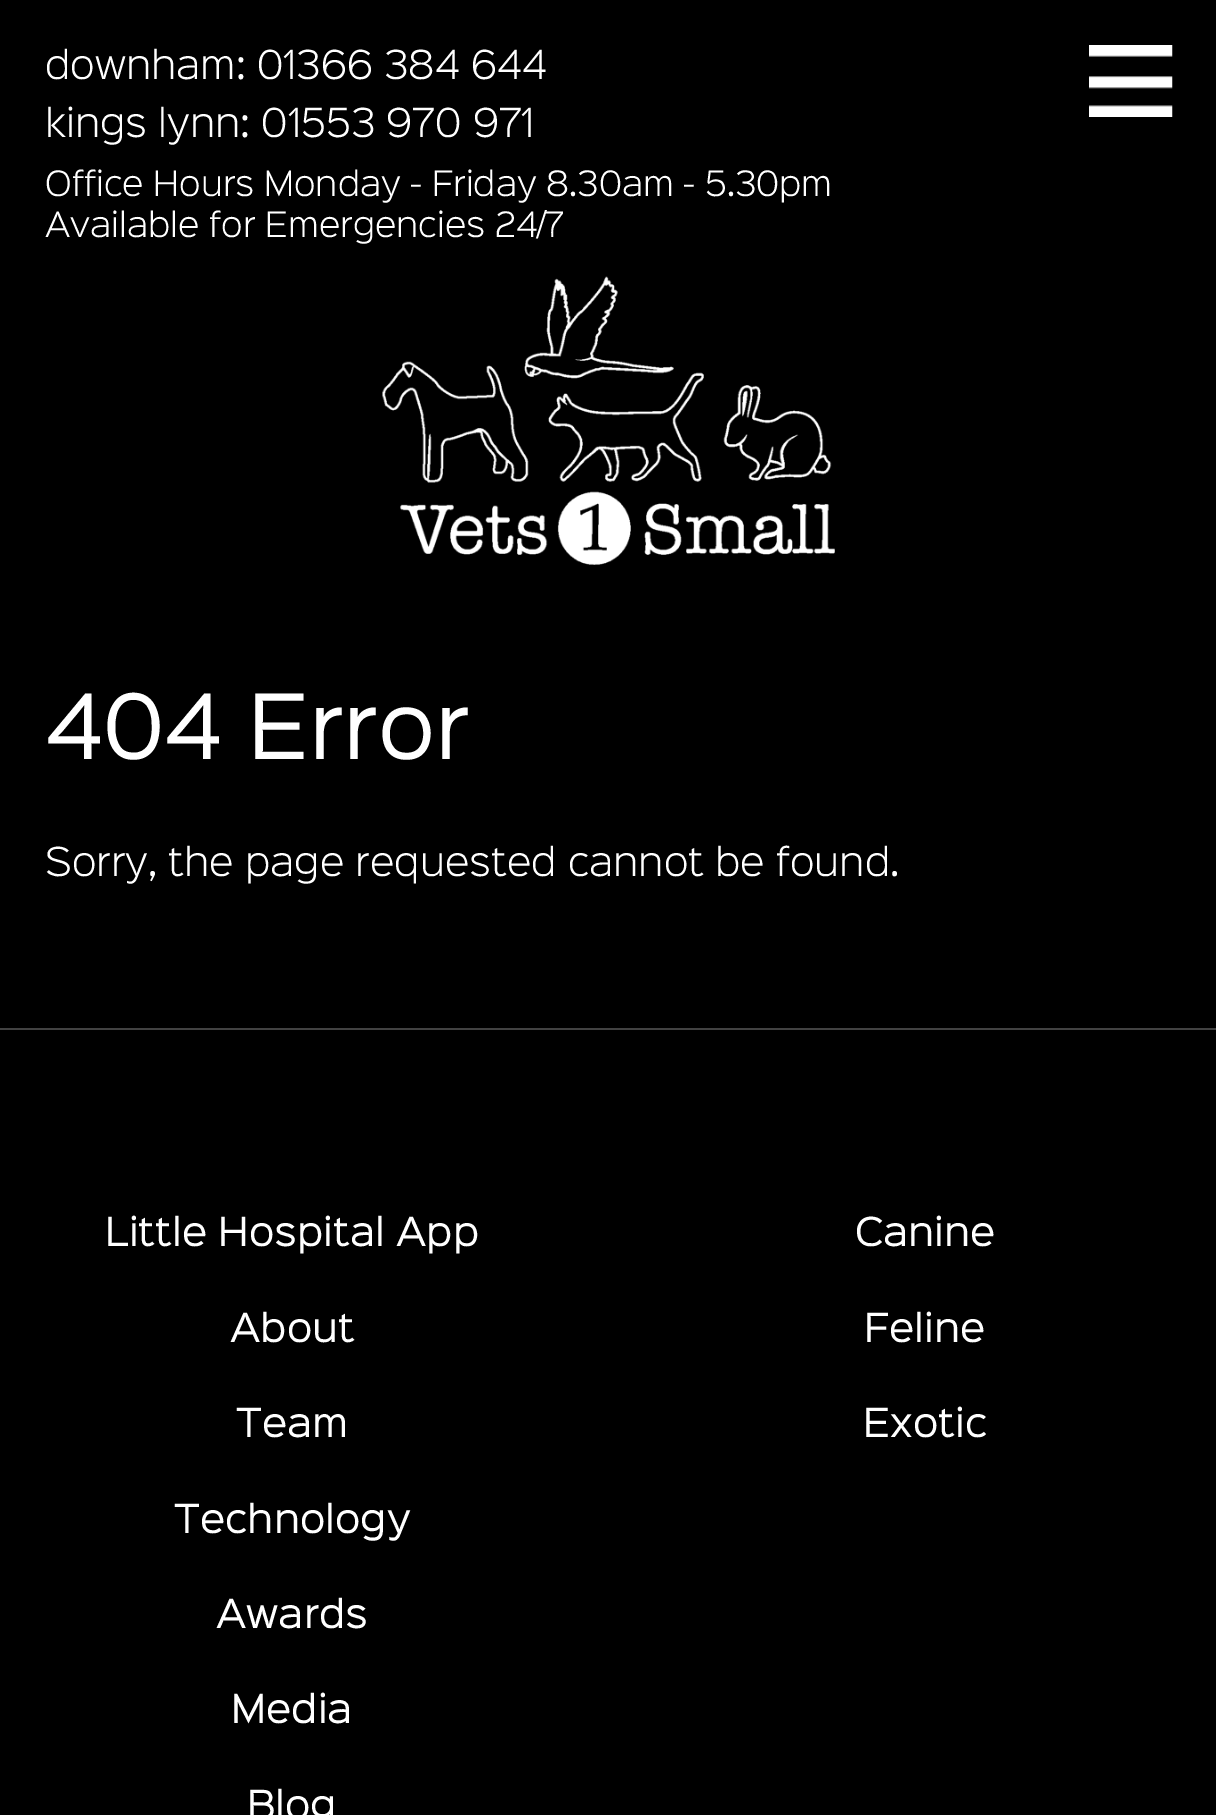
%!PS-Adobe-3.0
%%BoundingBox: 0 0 1216 1815
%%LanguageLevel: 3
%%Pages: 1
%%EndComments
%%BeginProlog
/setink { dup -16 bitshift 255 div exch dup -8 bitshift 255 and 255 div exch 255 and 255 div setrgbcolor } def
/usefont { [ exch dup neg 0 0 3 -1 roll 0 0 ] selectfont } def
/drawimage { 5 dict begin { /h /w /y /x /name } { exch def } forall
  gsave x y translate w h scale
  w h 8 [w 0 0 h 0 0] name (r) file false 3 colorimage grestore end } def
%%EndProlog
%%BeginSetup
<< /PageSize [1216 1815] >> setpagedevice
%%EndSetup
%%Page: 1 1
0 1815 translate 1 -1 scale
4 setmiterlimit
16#000000 setink
0 0 1216 1815 rectfill
/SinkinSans-Light 36 usefont
16#FFFFFF setink
45 79 moveto (downham: 01366 384 644) show
45 137 moveto (kings lynn: 01553 970 971) show
/SinkinSans-Light 31.5 usefont
45 196 moveto (Office Hours Monday - Friday 8.30am - 5.30pm) show
45 237 moveto (Available for Emergencies 24/7) show
(img1.raw) 1089 45 84 72 drawimage
(img2.raw) 382 276 453 289 drawimage
/SinkinSans-Regular 81 usefont
45 759 moveto (404 Error) show
/SinkinSans-Light 36 usefont
45 876 moveto (Sorry, the page requested cannot be found.) show
16#424242 setink
0 1028 1216 2 rectfill
/SinkinSans-Regular 36 usefont
16#FFFFFF setink
[
    [(Little Hospital App) 105 1246]
    [(About) 230 1342]
    [(Team) 236 1437]
    [(Technology) 174 1533]
    [(Awards) 216 1628]
    [(Media) 231 1723]
    [(Blog) 247 1819]
    [(Canine) 855 1246]
    [(Feline) 864 1342]
    [(Exotic) 863 1437]
] { aload pop moveto show } forall
showpage
%%EOF
